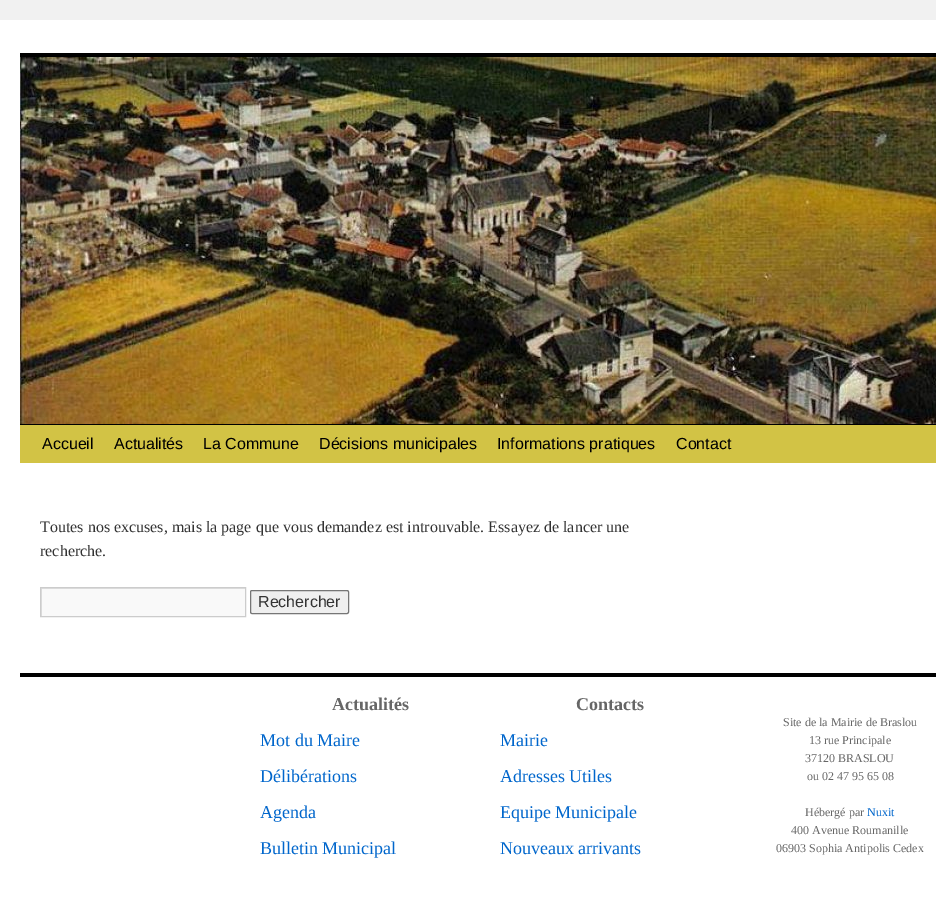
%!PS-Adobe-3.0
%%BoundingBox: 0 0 936 915
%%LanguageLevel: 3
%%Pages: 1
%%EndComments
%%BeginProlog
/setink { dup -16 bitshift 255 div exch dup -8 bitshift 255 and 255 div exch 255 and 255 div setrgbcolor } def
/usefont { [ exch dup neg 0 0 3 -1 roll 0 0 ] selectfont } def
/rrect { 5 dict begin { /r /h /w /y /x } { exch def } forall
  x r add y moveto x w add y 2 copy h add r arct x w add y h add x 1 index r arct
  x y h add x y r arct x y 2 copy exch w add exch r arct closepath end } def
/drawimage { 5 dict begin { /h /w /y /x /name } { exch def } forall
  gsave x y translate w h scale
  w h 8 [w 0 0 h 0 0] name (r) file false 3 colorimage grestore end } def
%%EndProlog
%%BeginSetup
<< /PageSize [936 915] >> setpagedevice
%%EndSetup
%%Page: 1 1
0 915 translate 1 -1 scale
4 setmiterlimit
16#F1F1F1 setink
0 0 936 915 rectfill
[
    [0 20 936 895 16#FFFFFF]
    [20 53 916 4 16#000000]
    [20 424 916 1 16#000000]
] { aload pop setink rectfill } forall
(img1.raw) 20 57 916 367 drawimage
16#D2C345 setink
20 425 916 38 rectfill
/LiberationSans-Regular 16 usefont
16#000000 setink
[
    [(Accueil) 42 449]
    [(Actualités) 114 449]
    [(La Commune) 203 449]
    [(Décisions municipales) 319 449]
    [(Informations pratiques) 497 449]
    [(Contact) 676 449]
] { aload pop moveto show } forall
/LiberationSerif-Regular 16 usefont
16#333333 setink
40 532 moveto (Toutes nos excuses, mais la page que vous demandez est introuvable. Essayez de lancer une) show
40 556 moveto (recherche.) show
16#F9F9F9 setink
42 589 203 27 rectfill
gsave
41 588 204 28 rectclip
16#E0E0E0 setink
-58 489 moveto 344 489 lineto 344 715 lineto -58 715 lineto closepath 42 589 moveto 246 589 lineto 246 617 lineto 42 617 lineto closepath eofill
grestore
16#CCCCCC setink
40.5 587.5 205 29 rectstroke
16#EFEFEF setink
250.5 590.5 98 23 1.5 rrect gsave fill grestore
16#767676 setink
stroke
/LiberationSans-Regular 16 usefont
16#333333 setink
258 607 moveto (Rechercher) show
16#000000 setink
20 673 916 4 rectfill
/LiberationSerif-Bold 18 usefont
16#666666 setink
332 710 moveto (Actualités) show
/LiberationSerif-Regular 18 usefont
16#0066CC setink
[
    [(Mot du Maire) 260 746]
    [(Délibérations) 260 782]
    [(Agenda) 260 818]
    [(Bulletin Municipal) 260 854]
] { aload pop moveto show } forall
/LiberationSerif-Bold 18 usefont
16#666666 setink
576 710 moveto (Contacts) show
/LiberationSerif-Regular 18 usefont
16#0066CC setink
[
    [(Mairie) 500 746]
    [(Adresses Utiles) 500 782]
    [(Equipe Municipale) 500 818]
    [(Nouveaux arrivants) 500 854]
] { aload pop moveto show } forall
/LiberationSerif-Regular 12 usefont
16#666666 setink
[
    [(Site de la Mairie de Braslou) 783 726]
    [(13 rue Principale) 809 744]
    [(37120 BRASLOU) 805 762]
    [(ou 02 47 95 65 08) 807 780]
    [(Hébergé par) 805 816]
] { aload pop moveto show } forall
16#0066CC setink
867 816 moveto (Nuxit) show
16#666666 setink
791 834 moveto (400 Avenue Roumanille) show
776 852 moveto (06903 Sophia Antipolis Cedex) show
showpage
%%EOF
